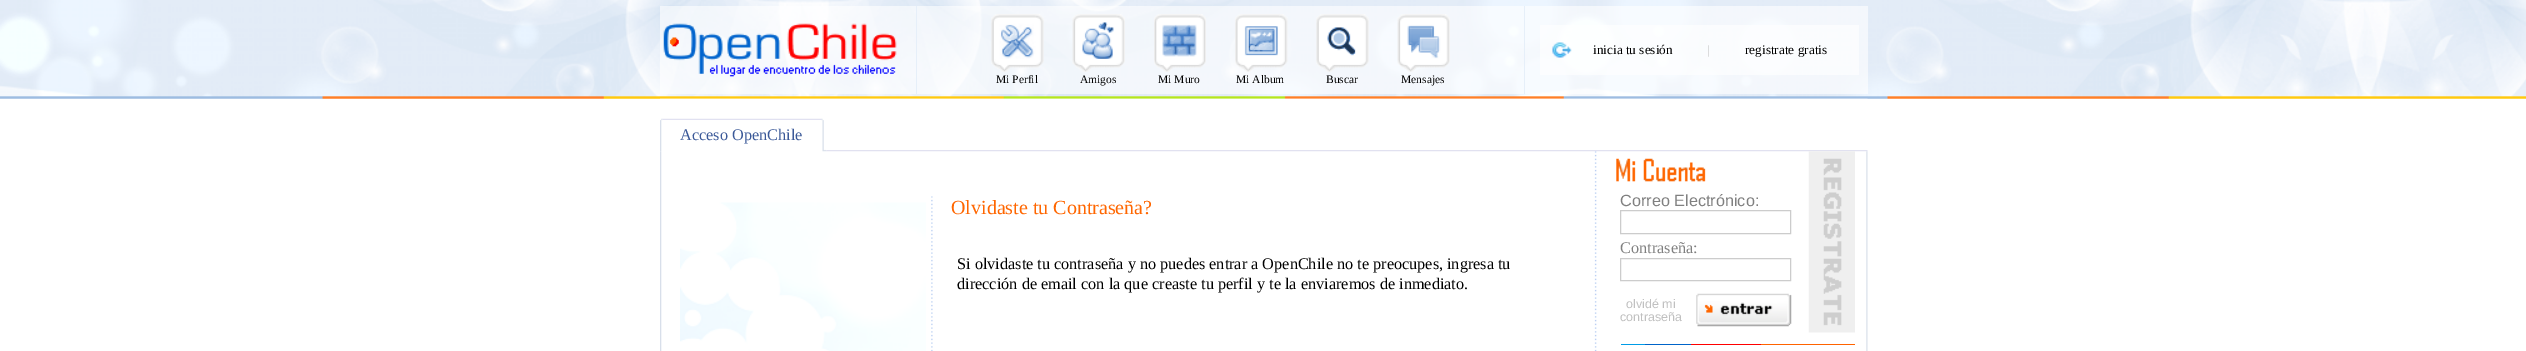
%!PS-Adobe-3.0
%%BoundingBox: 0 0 2526 351
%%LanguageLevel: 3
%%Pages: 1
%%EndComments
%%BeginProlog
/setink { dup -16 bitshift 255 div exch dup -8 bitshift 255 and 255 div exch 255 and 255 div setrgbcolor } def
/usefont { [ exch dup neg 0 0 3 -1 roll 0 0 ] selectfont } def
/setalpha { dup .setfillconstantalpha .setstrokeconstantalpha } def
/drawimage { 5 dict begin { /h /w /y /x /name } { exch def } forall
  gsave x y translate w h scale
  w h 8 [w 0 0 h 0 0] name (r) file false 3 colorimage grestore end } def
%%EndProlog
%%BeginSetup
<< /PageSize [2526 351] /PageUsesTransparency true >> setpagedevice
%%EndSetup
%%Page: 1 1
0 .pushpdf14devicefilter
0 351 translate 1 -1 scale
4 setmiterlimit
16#FFFFFF setink
0 0 2526 351 rectfill
(img1.raw) 0 0 2526 99 drawimage
0.6 setalpha
660 6 1208 88 rectfill
1 setalpha
(img2.raw) 663 23 234 54 drawimage
[
    [916 6 1 88 16#E6EFF9]
    [1524 6 1 88 16#E6EFF9]
] { aload pop setink rectfill } forall
0.6 setalpha
[
    [1540 25 319 50 16#FFFFFF]
] { aload pop setink rectfill } forall
1 setalpha
(img3.raw) 1552 42 20 16 drawimage
/LiberationSerif-Regular 13.25 usefont
16#000000 setink
1593 54 moveto (inicia tu sesión) show
/LiberationSerif-Regular 12.5 usefont
16#C0C0C0 setink
1707 54 moveto (|) show
/LiberationSerif-Regular 13.25 usefont
16#000000 setink
1745 54 moveto (registrate gratis) show
(img4.raw) 991 14 53 58 drawimage
/LiberationSerif-Regular 11.5 usefont
996 83 moveto (Mi Perfil) show
(img5.raw) 1072 14 53 58 drawimage
1080 83 moveto (Amigos) show
(img6.raw) 1154 14 52 58 drawimage
1158 83 moveto (Mi Muro) show
(img7.raw) 1235 14 53 58 drawimage
1236 83 moveto (Mi Album) show
(img8.raw) 1316 14 53 58 drawimage
1326 83 moveto (Buscar) show
(img9.raw) 1397 14 53 58 drawimage
1401 83 moveto (Mensajes) show
(img10.raw) 660 98 1208 1 drawimage
(img11.raw) 660 118 3 34 drawimage
(img12.raw) 662 118 160 2 drawimage
/LiberationSerif-Regular 16.25 usefont
16#3B5998 setink
680 140 moveto (Acceso OpenChile) show
(img13.raw) 821 118 6 34 drawimage
(img14.raw) 826 150 1042 2 drawimage
(img15.raw) 660 151 1208 200 drawimage
(img16.raw) 680 202 246 149 drawimage
(img17.raw) 931 196 2 155 drawimage
/LiberationSerif-Regular 20 usefont
16#FF6600 setink
951 214 moveto (Olvidaste tu Contraseña?) show
/LiberationSerif-Regular 16.25 usefont
16#000000 setink
957 269 moveto (Si olvidaste tu contraseña y no puedes entrar a OpenChile no te preocupes, ingresa tu) show
957 289 moveto (dirección de email con la que creaste tu perfil y te la enviaremos de inmediato.) show
(img18.raw) 1594 151 3 200 drawimage
(img19.raw) 1616 158 90 24 drawimage
/LiberationSans-Regular 16.25 usefont
16#808080 setink
1620 206 moveto (Correo Electrónico:) show
16#CCCCCC setink
1620.5 210.5 170 23 rectstroke
/LiberationSerif-Regular 16.25 usefont
16#808080 setink
1620 253 moveto (Contraseña:) show
16#CCCCCC setink
1620.5 258.5 170 22 rectstroke
/LiberationSans-Regular 12.5 usefont
16#C0C0C0 setink
1626 308 moveto (olvidé mi) show
1620 321 moveto (contraseña) show
(img20.raw) 1696 293 96 34 drawimage
(img21.raw) 1808 151 47 182 drawimage
[
    [1621 344 24 1 16#009CE7]
    [1645 344 46 1 16#0064C9]
    [1691 344 70 1 16#FF0000]
    [1761 344 94 1 16#FF6300]
] { aload pop setink rectfill } forall
.poppdf14devicefilter showpage
%%EOF
